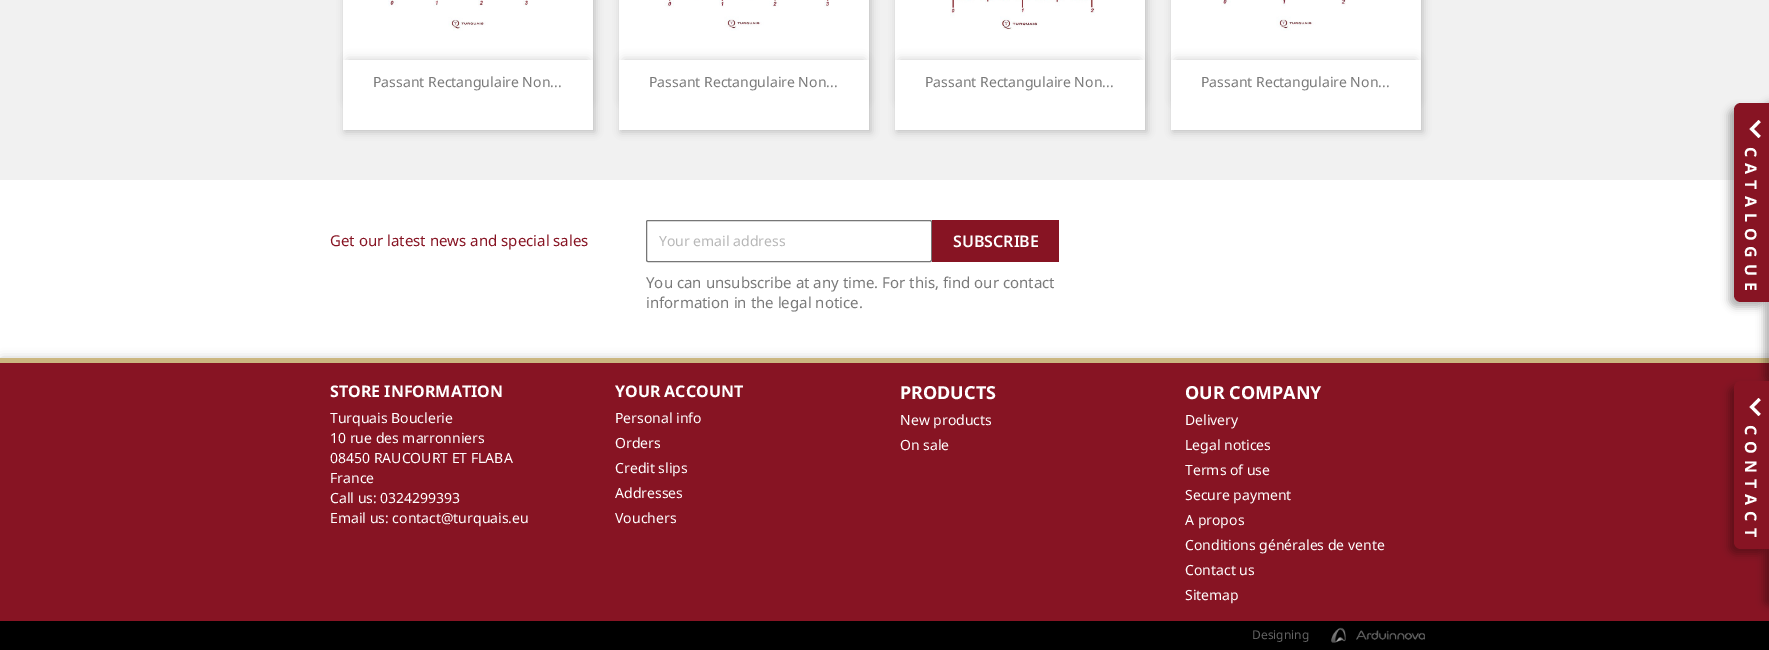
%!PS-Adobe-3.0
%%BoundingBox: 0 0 1769 650
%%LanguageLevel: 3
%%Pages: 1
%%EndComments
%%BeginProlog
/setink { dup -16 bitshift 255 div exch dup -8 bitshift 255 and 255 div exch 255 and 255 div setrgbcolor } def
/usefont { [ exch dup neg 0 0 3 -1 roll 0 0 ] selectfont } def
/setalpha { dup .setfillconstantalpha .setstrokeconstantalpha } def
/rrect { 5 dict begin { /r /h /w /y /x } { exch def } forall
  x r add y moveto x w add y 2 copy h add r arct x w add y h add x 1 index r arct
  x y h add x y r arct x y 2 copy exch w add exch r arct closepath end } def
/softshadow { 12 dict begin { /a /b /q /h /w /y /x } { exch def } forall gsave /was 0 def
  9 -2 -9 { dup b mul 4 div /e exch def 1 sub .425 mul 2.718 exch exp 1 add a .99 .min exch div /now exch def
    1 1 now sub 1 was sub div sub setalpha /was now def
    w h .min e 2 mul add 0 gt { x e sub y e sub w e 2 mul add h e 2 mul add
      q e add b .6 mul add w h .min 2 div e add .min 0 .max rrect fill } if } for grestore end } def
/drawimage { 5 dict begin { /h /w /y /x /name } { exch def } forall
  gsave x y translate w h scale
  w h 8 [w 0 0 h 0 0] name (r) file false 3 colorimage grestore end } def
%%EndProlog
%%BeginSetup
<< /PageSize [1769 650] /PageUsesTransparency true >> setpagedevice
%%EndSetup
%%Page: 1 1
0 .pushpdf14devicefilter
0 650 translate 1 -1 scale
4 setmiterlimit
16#FFFFFF setink
0 0 1769 650 rectfill
16#F1F1F1 setink
0 0 1769 180 rectfill
16#000000 setink
345 -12 250 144 0 4 0.2 softshadow
16#FFFFFF setink
343 0 250 60 rectfill
(img1.raw) 388 0 140 31 drawimage
16#000000 setink
348 60 240 40 0 5 0.2 softshadow
16#FFFFFF setink
343 60 250 70 rectfill
/NotoSans-Regular 14 usefont
16#7A7A7A setink
373 87 moveto (Passant Rectangulaire Non...) show
16#000000 setink
621 -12 250 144 0 4 0.2 softshadow
16#FFFFFF setink
619 0 250 60 rectfill
(img2.raw) 664 0 165 31 drawimage
16#000000 setink
624 60 240 40 0 5 0.2 softshadow
16#FFFFFF setink
619 60 250 70 rectfill
16#7A7A7A setink
649 87 moveto (Passant Rectangulaire Non...) show
16#000000 setink
897 -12 250 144 0 4 0.2 softshadow
16#FFFFFF setink
895 0 250 60 rectfill
(img3.raw) 950 0 145 30 drawimage
16#000000 setink
900 60 240 40 0 5 0.2 softshadow
16#FFFFFF setink
895 60 250 70 rectfill
16#7A7A7A setink
925 87 moveto (Passant Rectangulaire Non...) show
16#000000 setink
1173 -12 250 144 0 4 0.2 softshadow
16#FFFFFF setink
1171 0 250 60 rectfill
(img4.raw) 1221 0 125 31 drawimage
16#000000 setink
1176 60 240 40 0 5 0.2 softshadow
16#FFFFFF setink
1171 60 250 70 rectfill
16#7A7A7A setink
1201 87 moveto (Passant Rectangulaire Non...) show
16#000000 setink
0 621 1769 29 rectfill
2 360 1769 263 0 5.5 0.3 softshadow
16#871423 setink
0 363 1769 258 rectfill
16#CBB67F setink
0 358 1769 5 rectfill
16#000000 setink
1764 103 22 278 5 4 0.3 softshadow
1729 108 35 199 7 4 0.3 softshadow
16#871423 setink
1741 103 moveto 1769 103 lineto 1769 302 lineto 1741 302 lineto 1737 302 1734 299 1734 295 curveto 1734 110 lineto 1734 106 1737 103 1741 103 curveto closepath fill
(img5.raw) 1749 120 12 18 drawimage
/NotoSans-Bold 16 usefont
16#FFFFFF setink
gsave 1745 147 translate 90 rotate 0 0 moveto 6 0 (CATALOGUE) ashow grestore
16#000000 setink
1764 381 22 225 5 4 0.3 softshadow
1729 386 35 168 7 4 0.3 softshadow
16#871423 setink
1741 381 moveto 1769 381 lineto 1769 549 lineto 1741 549 lineto 1737 549 1734 546 1734 542 curveto 1734 388 lineto 1734 384 1737 381 1741 381 curveto closepath fill
(img5.raw) 1749 398 12 18 drawimage
16#FFFFFF setink
gsave 1745 425 translate 90 rotate 0 0 moveto 6 0 (CONTACT) ashow grestore
/NotoSans-Regular 15 usefont
16#871423 setink
330 246 moveto (Get our latest news and special sales) show
16#767676 setink
646.5 220.5 285 41 1.5 rrect stroke
/NotoSans-Regular 14 usefont
16#B7B7B7 setink
659 246 moveto (Your email address) show
16#871423 setink
932 220 127 42 rectfill
/NotoSans-SemiBold 16 usefont
16#FFFFFF setink
953 247 moveto (SUBSCRIBE) show
/NotoSans-Regular 15 usefont
16#7A7A7A setink
646 288 moveto (You can unsubscribe at any time. For this, find our contact) show
646 308 moveto (information in the legal notice.) show
/NotoSans-Bold 16 usefont
16#FFFFFF setink
330 397 moveto (STORE INFORMATION) show
/NotoSans-Regular 14 usefont
[
    [(Turquais Bouclerie) 330 423]
    [(10 rue des marronniers) 330 443]
    [(08450 RAUCOURT ET FLABA) 330 463]
    [(France) 330 483]
    [(Call us: 0324299393) 330 503]
    [(Email us: contact@turquais.eu) 330 523]
] { aload pop moveto show } forall
/NotoSans-Bold 16 usefont
615 397 moveto (YOUR ACCOUNT) show
/NotoSans-Regular 14 usefont
[
    [(Personal info) 615 423]
    [(Orders) 615 448]
    [(Credit slips) 615 473]
    [(Addresses) 615 498]
    [(Vouchers) 615 523]
] { aload pop moveto show } forall
/NotoSans-Bold 18 usefont
900 399 moveto (PRODUCTS) show
/NotoSans-Regular 14 usefont
900 425 moveto (New products) show
900 450 moveto (On sale) show
/NotoSans-Bold 18 usefont
1185 399 moveto (OUR COMPANY) show
/NotoSans-Regular 14 usefont
[
    [(Delivery) 1185 425]
    [(Legal notices) 1185 450]
    [(Terms of use) 1185 475]
    [(Secure payment) 1185 500]
    [(A propos) 1185 525]
    [(Conditions générales de vente) 1185 550]
    [(Contact us) 1185 575]
    [(Sitemap) 1185 600]
] { aload pop moveto show } forall
/NotoSans-Regular 12 usefont
16#646464 setink
1252 639 moveto (Designing) show
(img6.raw) 1331 627 94 16 drawimage
.poppdf14devicefilter showpage
%%EOF
